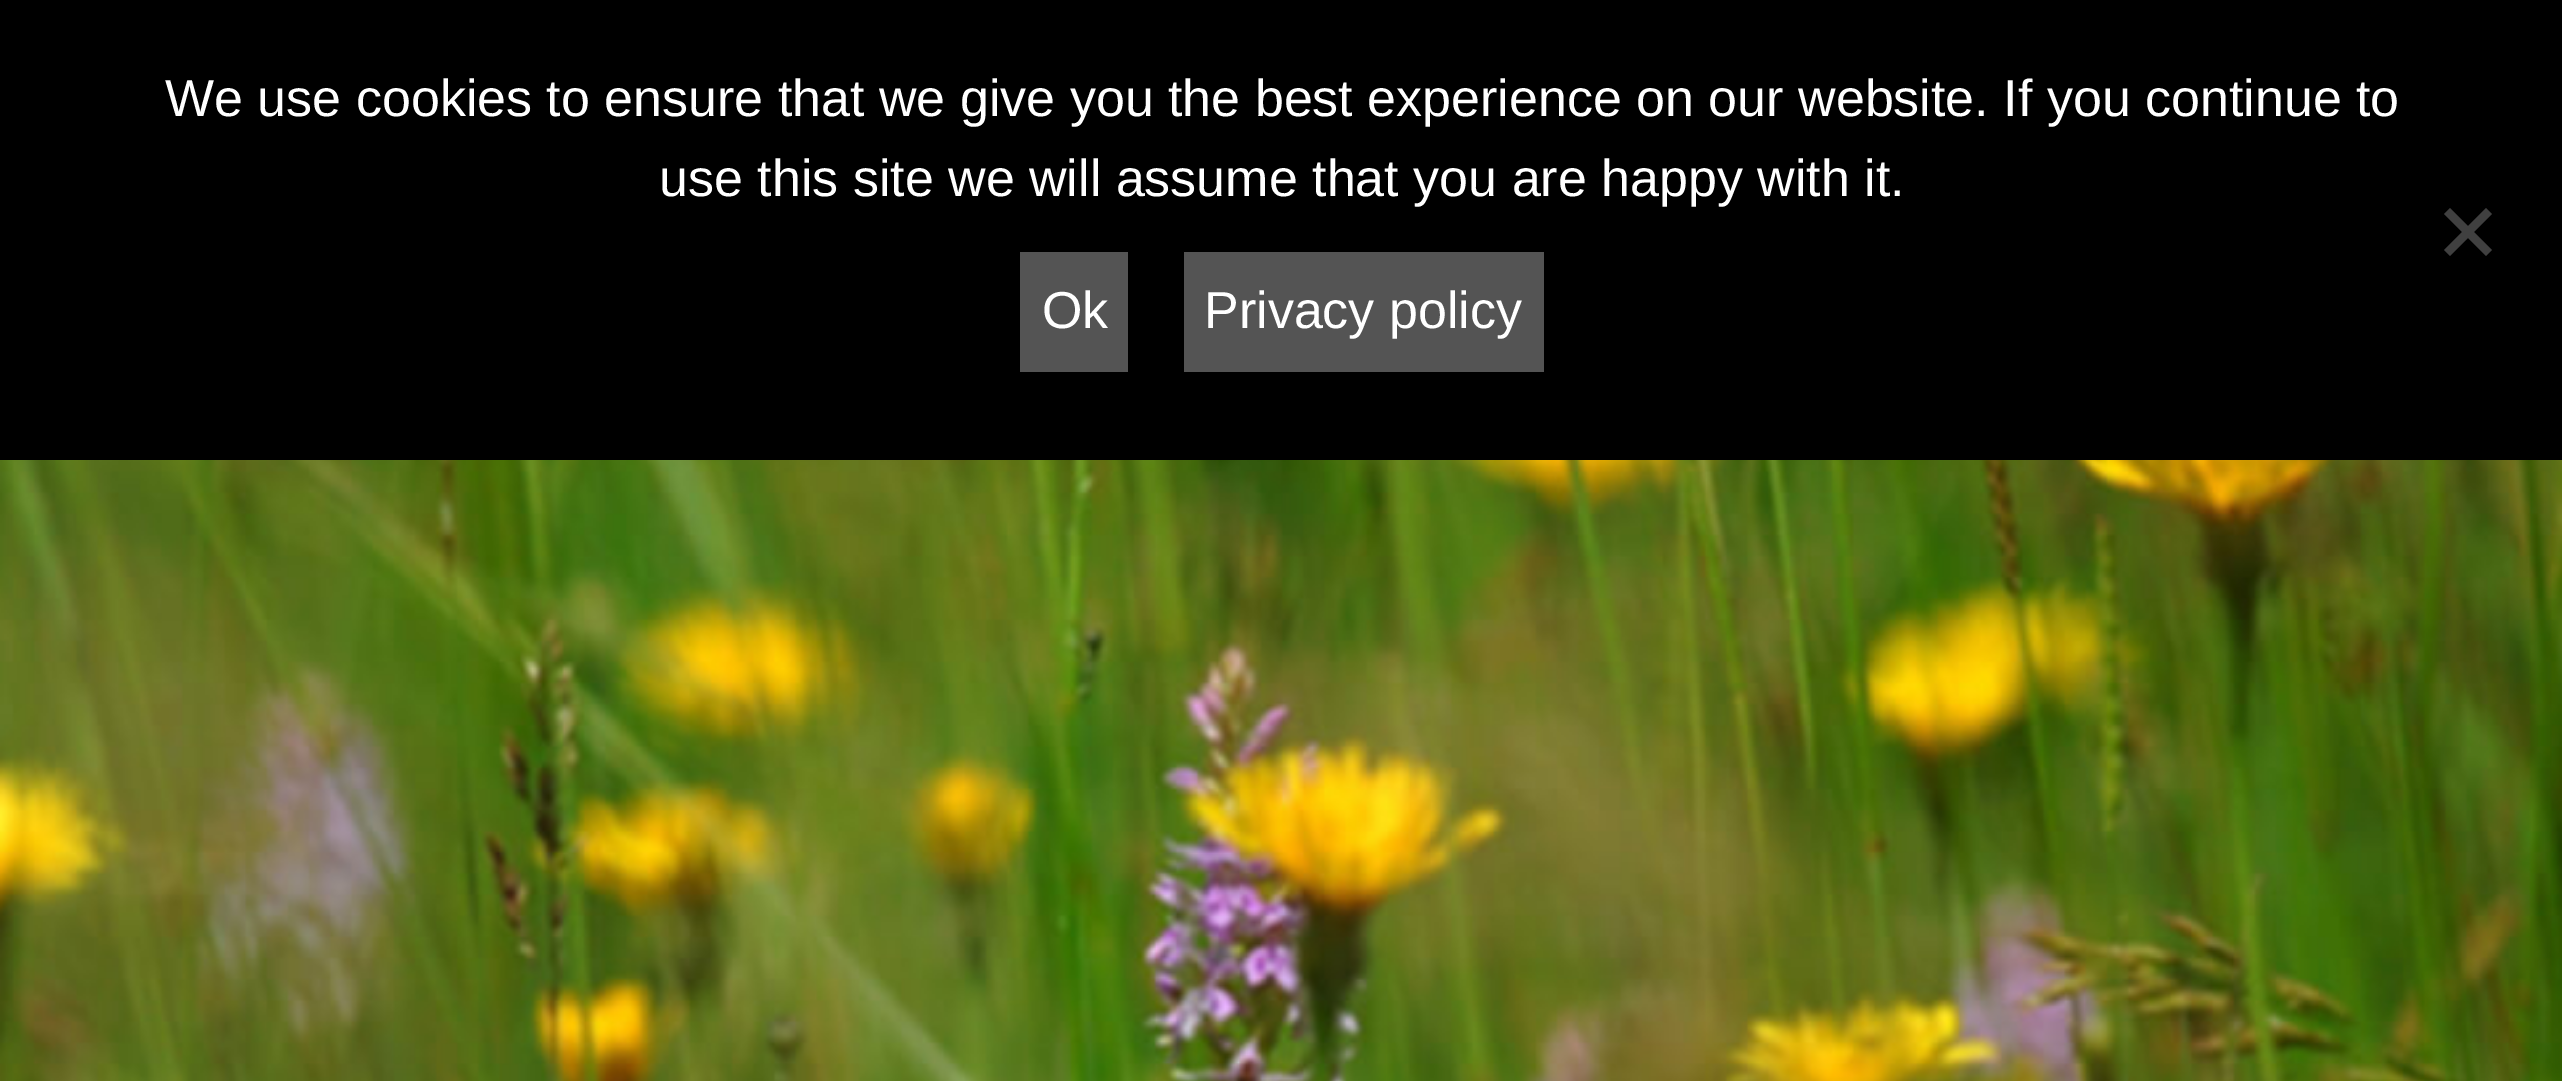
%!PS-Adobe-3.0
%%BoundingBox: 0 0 2562 1081
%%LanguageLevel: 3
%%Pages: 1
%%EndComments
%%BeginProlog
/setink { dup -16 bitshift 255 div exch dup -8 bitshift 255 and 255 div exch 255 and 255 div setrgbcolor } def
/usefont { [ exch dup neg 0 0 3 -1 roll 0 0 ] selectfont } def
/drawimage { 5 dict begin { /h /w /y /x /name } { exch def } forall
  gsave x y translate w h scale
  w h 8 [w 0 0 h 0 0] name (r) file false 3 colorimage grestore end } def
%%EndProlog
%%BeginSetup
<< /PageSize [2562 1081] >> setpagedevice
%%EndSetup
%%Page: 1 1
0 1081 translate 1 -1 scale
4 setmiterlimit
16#FFFFFF setink
0 0 2562 1081 rectfill
16#000000 setink
0 0 2562 460 rectfill
/LiberationSans-Regular 52 usefont
16#FFFFFF setink
165 116 moveto (We use cookies to ensure that we give you the best experience on our website. If you continue to) show
659 196 moveto (use this site we will assume that you are happy with it.) show
16#404040 setink
2486 208 moveto 2492 214 lineto 2450 256 lineto 2444 250 lineto closepath fill
2444 214 moveto 2450 208 lineto 2492 250 lineto 2486 256 lineto closepath fill
16#545454 setink
1020 252 108 120 rectfill
16#FFFFFF setink
1042 328 moveto (Ok) show
16#545454 setink
1184 252 360 120 rectfill
16#FFFFFF setink
1204 328 moveto (Privacy policy) show
(img1.raw) 0 460 2562 621 drawimage
showpage
%%EOF
